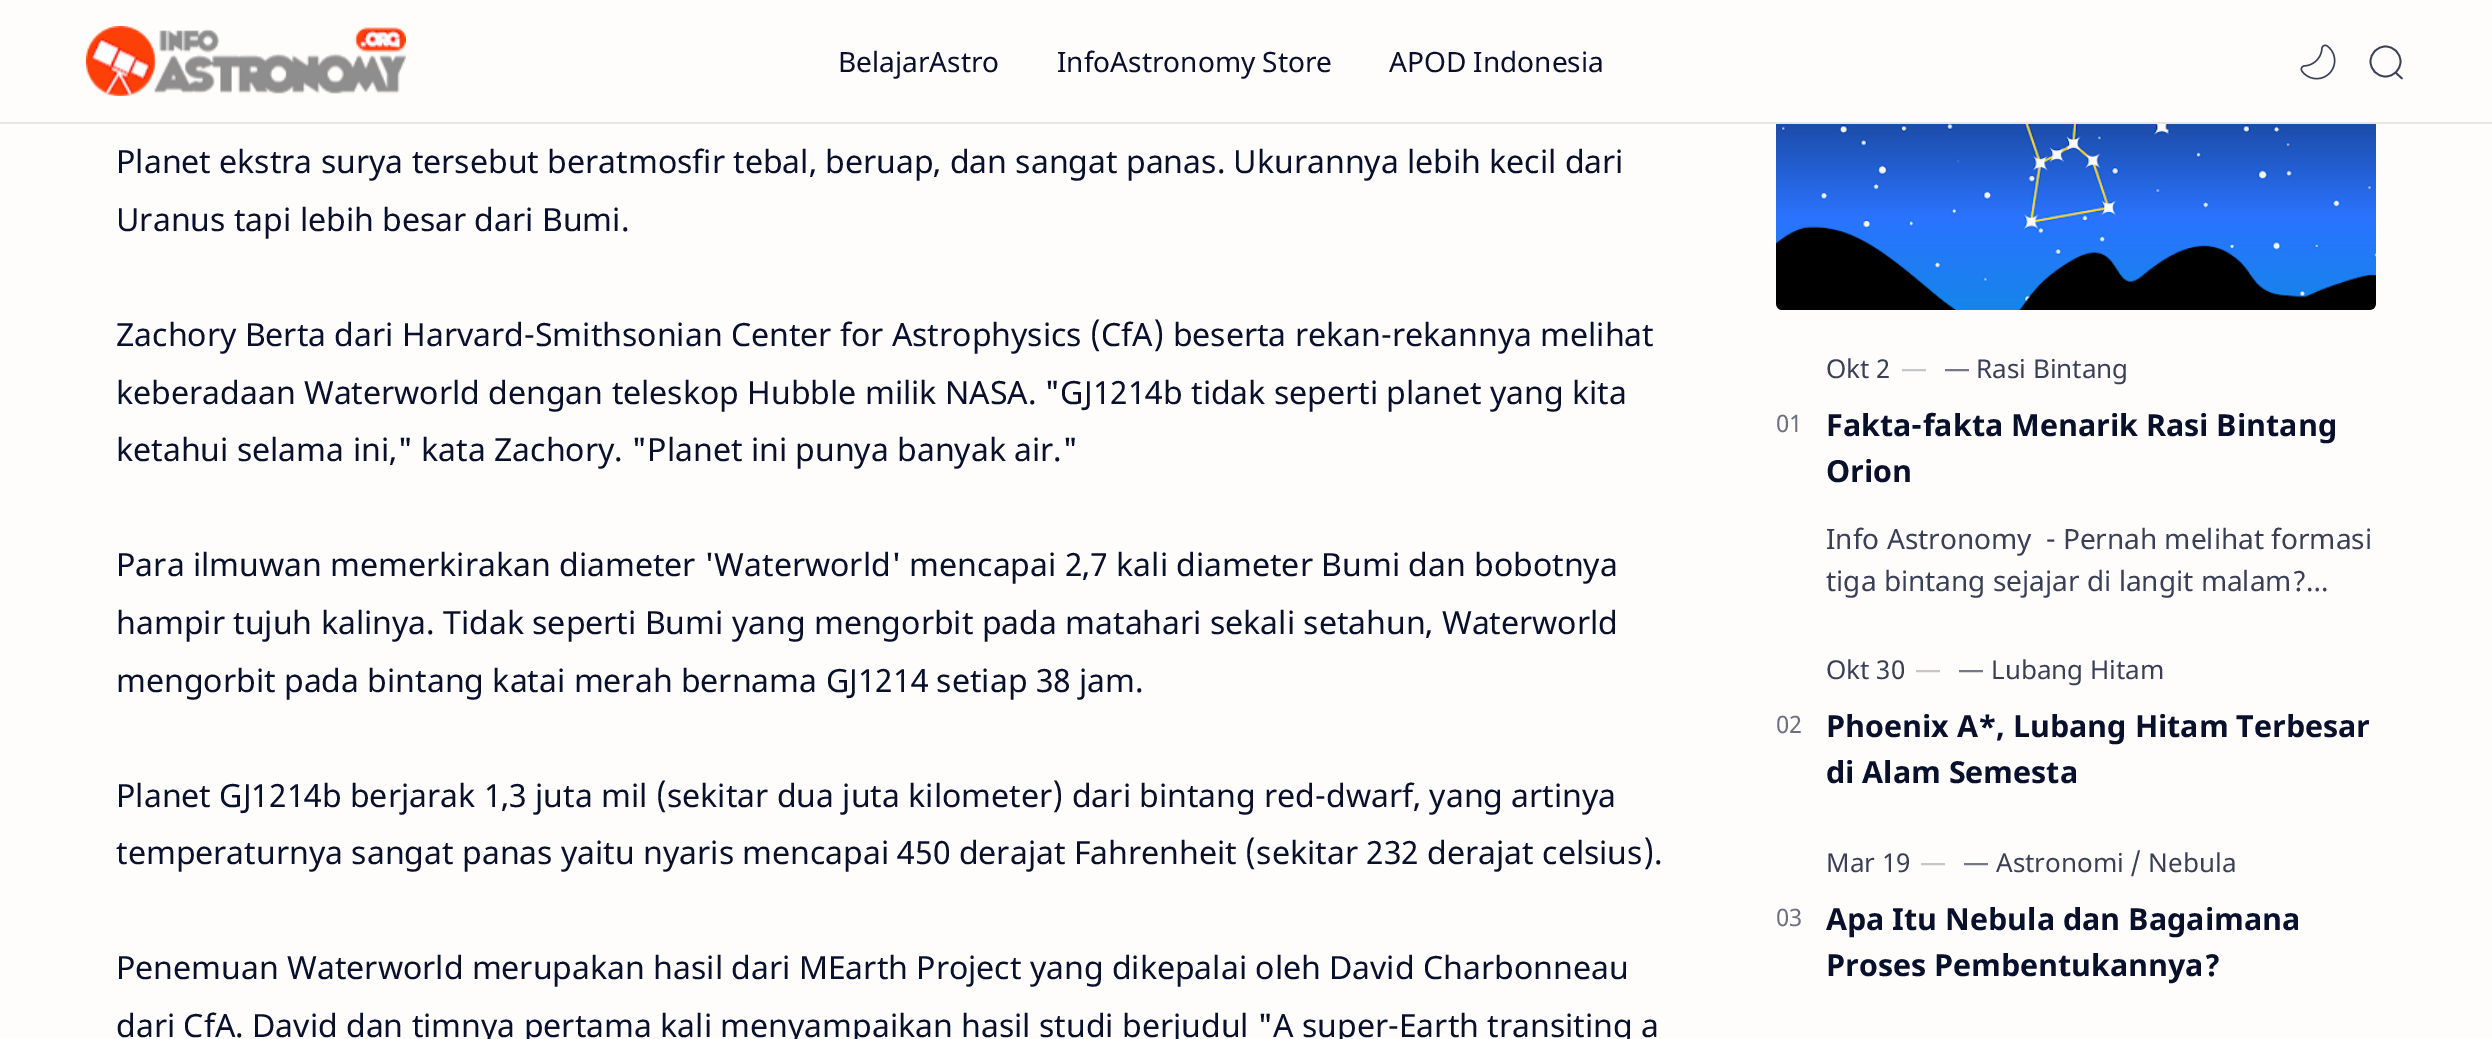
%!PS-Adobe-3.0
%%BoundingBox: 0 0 2492 1039
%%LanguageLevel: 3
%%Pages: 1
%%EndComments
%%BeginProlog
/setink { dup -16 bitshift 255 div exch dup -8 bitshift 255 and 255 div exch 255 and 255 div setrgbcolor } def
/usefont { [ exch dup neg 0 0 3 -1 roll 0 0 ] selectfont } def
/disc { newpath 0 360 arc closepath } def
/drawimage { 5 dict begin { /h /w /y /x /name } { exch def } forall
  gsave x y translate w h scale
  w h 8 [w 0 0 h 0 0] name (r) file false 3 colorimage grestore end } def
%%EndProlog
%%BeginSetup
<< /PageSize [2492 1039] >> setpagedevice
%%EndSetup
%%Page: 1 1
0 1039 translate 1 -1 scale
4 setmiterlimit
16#FFFDFC setink
0 0 2492 1039 rectfill
16#E6E6E6 setink
0 122 2492 2 rectfill
(img1.raw) 86 26 320 70 drawimage
/NotoSans-Regular 28 usefont
16#08102B setink
[
    [(BelajarAstro) 838 72]
    [(InfoAstronomy Store) 1057 72]
    [(APOD Indonesia) 1389 72]
] { aload pop moveto show } forall
(img2.raw) 2300 44 36 36 drawimage
16#393F55 setink
1.7 setlinewidth
2385.5 61.5 15 disc stroke
1 setlinecap
1 setlinejoin
2396 73 moveto 2402 78.5 lineto stroke
/NotoSans-Regular 32 usefont
16#08102B setink
[
    [(Planet ekstra surya tersebut beratmosfir tebal, beruap, dan sangat panas. Ukurannya lebih kecil dari) 116 173]
    [(Uranus tapi lebih besar dari Bumi.) 116 231]
    [(Zachory Berta dari Harvard-Smithsonian Center for Astrophysics \(CfA\) beserta rekan-rekannya melihat) 116 346]
    [(keberadaan Waterworld dengan teleskop Hubble milik NASA. "GJ1214b tidak seperti planet yang kita) 116 404]
    [(ketahui selama ini," kata Zachory. "Planet ini punya banyak air.") 116 461]
    [(Para ilmuwan memerkirakan diameter 'Waterworld' mencapai 2,7 kali diameter Bumi dan bobotnya) 116 576]
    [(hampir tujuh kalinya. Tidak seperti Bumi yang mengorbit pada matahari sekali setahun, Waterworld) 116 634]
    [(mengorbit pada bintang katai merah bernama GJ1214 setiap 38 jam.) 116 692]
    [(Planet GJ1214b berjarak 1,3 juta mil \(sekitar dua juta kilometer\) dari bintang red-dwarf, yang artinya) 116 807]
    [(temperaturnya sangat panas yaitu nyaris mencapai 450 derajat Fahrenheit \(sekitar 232 derajat celsius\).) 116 864]
    [(Penemuan Waterworld merupakan hasil dari MEarth Project yang dikepalai oleh David Charbonneau) 116 979]
    [(dari CfA. David dan timnya pertama kali menyampaikan hasil studi berjudul "A super-Earth transiting a) 116 1037]
] { aload pop moveto show } forall
(img3.raw) 1776 124 600 186 drawimage
/NotoSans-Regular 26 usefont
16#393F55 setink
1826 378 moveto (Okt 2) show
16#C5C6C8 setink
1901 378 moveto (—) show
16#757887 setink
1944 378 moveto (—) show
16#393F55 setink
1976 378 moveto (Rasi Bintang) show
/NotoSans-Regular 24 usefont
16#6B6F7F setink
1776 432 moveto (01) show
/NotoSans-Bold 30.4 usefont
16#08102B setink
1826 436 moveto (Fakta-fakta Menarik Rasi Bintang) show
1826 482 moveto (Orion) show
/NotoSans-Regular 28 usefont
16#393F55 setink
1826 549 moveto (Info Astronomy  - Pernah melihat formasi) show
1826 591 moveto (tiga bintang sejajar di langit malam?…) show
/NotoSans-Regular 26 usefont
1826 679 moveto (Okt 30) show
16#C5C6C8 setink
1915 679 moveto (—) show
16#757887 setink
1958 679 moveto (—) show
16#393F55 setink
1991 679 moveto (Lubang Hitam) show
/NotoSans-Regular 24 usefont
16#6B6F7F setink
1776 733 moveto (02) show
/NotoSans-Bold 30.4 usefont
16#08102B setink
1826 737 moveto (Phoenix A*, Lubang Hitam Terbesar) show
1826 783 moveto (di Alam Semesta) show
/NotoSans-Regular 26 usefont
16#393F55 setink
1826 872 moveto (Mar 19) show
16#C5C6C8 setink
1920 872 moveto (—) show
16#757887 setink
1963 872 moveto (—) show
16#393F55 setink
1996 872 moveto (Astronomi / Nebula) show
/NotoSans-Regular 24 usefont
16#6B6F7F setink
1776 926 moveto (03) show
/NotoSans-Bold 30.4 usefont
16#08102B setink
1826 930 moveto (Apa Itu Nebula dan Bagaimana) show
1826 976 moveto (Proses Pembentukannya?) show
showpage
%%EOF
